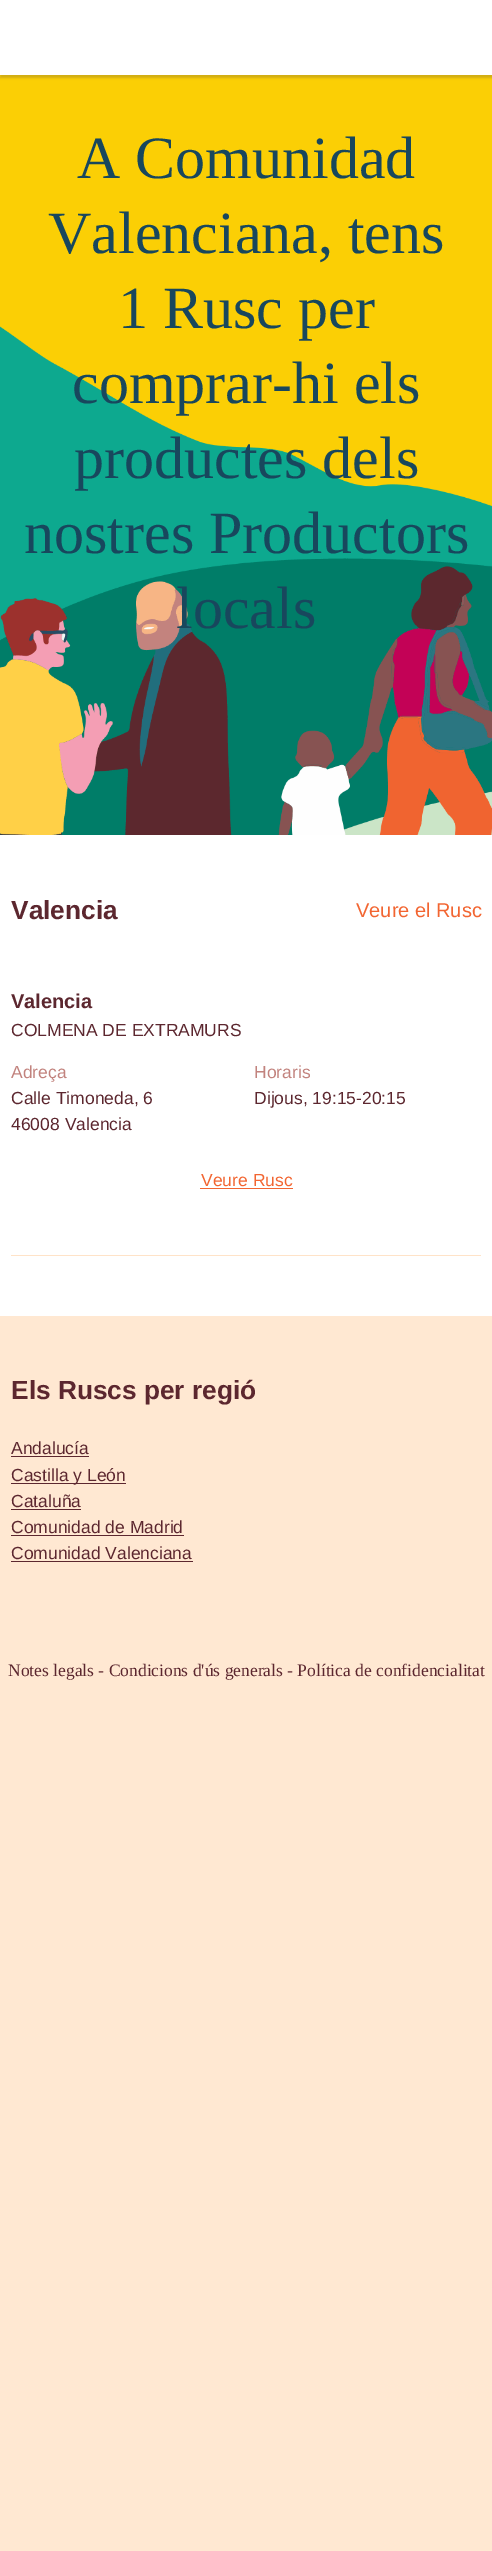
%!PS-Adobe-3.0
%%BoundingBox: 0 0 492 2551
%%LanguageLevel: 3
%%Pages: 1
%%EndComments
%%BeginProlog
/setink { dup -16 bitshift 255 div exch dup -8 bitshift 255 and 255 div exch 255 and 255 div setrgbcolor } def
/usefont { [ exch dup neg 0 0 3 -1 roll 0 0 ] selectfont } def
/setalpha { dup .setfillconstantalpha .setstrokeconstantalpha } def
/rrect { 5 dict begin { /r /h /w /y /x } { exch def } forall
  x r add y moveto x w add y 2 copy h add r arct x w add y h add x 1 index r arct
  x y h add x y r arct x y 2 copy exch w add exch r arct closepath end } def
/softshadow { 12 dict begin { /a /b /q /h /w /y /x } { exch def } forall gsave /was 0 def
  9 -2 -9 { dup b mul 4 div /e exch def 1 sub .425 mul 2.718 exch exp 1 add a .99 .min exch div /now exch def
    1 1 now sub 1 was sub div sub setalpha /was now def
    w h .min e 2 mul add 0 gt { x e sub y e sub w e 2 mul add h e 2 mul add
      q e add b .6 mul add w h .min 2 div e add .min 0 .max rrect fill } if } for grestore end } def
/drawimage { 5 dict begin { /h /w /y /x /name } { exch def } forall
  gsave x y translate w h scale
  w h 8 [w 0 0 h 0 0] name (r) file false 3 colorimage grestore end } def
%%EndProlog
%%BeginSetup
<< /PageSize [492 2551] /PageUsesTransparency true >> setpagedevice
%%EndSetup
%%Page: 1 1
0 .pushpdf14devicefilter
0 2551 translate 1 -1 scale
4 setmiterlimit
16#FFE8D2 setink
0 0 492 2551 rectfill
(img1.raw) 0 75 492 760 drawimage
16#2D2846 setink
0 3 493 75 0 1 0.2 softshadow
16#FFFFFF setink
0 0 492 75 rectfill
/LiberationSerif-Regular 60 usefont
16#18475D setink
[
    [(A Comunidad) 77 178]
    [(Valenciana, tens) 48 253]
    [(1 Rusc per) 118 328]
    [(comprar-hi els) 72 403]
    [(productes dels) 74 478]
    [(nostres Productors) 24 553]
    [(locals) 176 628]
] { aload pop moveto show } forall
16#FFFFFF setink
0 835 492 481 rectfill
16#FFE3C8 setink
11 1255 470 1 rectfill
/LiberationSans-Bold 26.25 usefont
16#5C272F setink
11 919 moveto (Valencia) show
/LiberationSans-Regular 20 usefont
16#F26531 setink
356 917 moveto (Veure el Rusc) show
/LiberationSans-Bold 20 usefont
16#5C272F setink
11 1008 moveto (Valencia) show
/LiberationSans-Regular 17.5 usefont
11 1036 moveto (COLMENA DE EXTRAMURS) show
16#C2837E setink
11 1078 moveto (Adreça) show
16#5C272F setink
11 1104 moveto (Calle Timoneda, 6) show
11 1130 moveto (46008 Valencia) show
16#C2837E setink
254 1078 moveto (Horaris) show
16#5C272F setink
254 1104 moveto (Dijous, 19:15-20:15) show
16#F26531 setink
201 1186 moveto (Veure Rusc) show
200 1188 93 1 rectfill
/LiberationSans-Bold 26.25 usefont
16#5C272F setink
11 1399 moveto (Els Ruscs per regió) show
/LiberationSans-Regular 17.5 usefont
11 1454 moveto (Andalucía) show
11 1456 78 1 rectfill
11 1483 115 1 rectfill
11 1481 moveto (Castilla y León) show
11 1507 moveto (Cataluña) show
11 1509 70 1 rectfill
11 1533 moveto (Comunidad de Madrid) show
11 1535 173 1 rectfill
11 1559 moveto (Comunidad Valenciana) show
11 1561 182 1 rectfill
/LiberationSerif-Regular 17.5 usefont
8 1676 moveto (Notes legals - Condicions d'ús generals - Política de confidencialitat) show
.poppdf14devicefilter showpage
%%EOF
